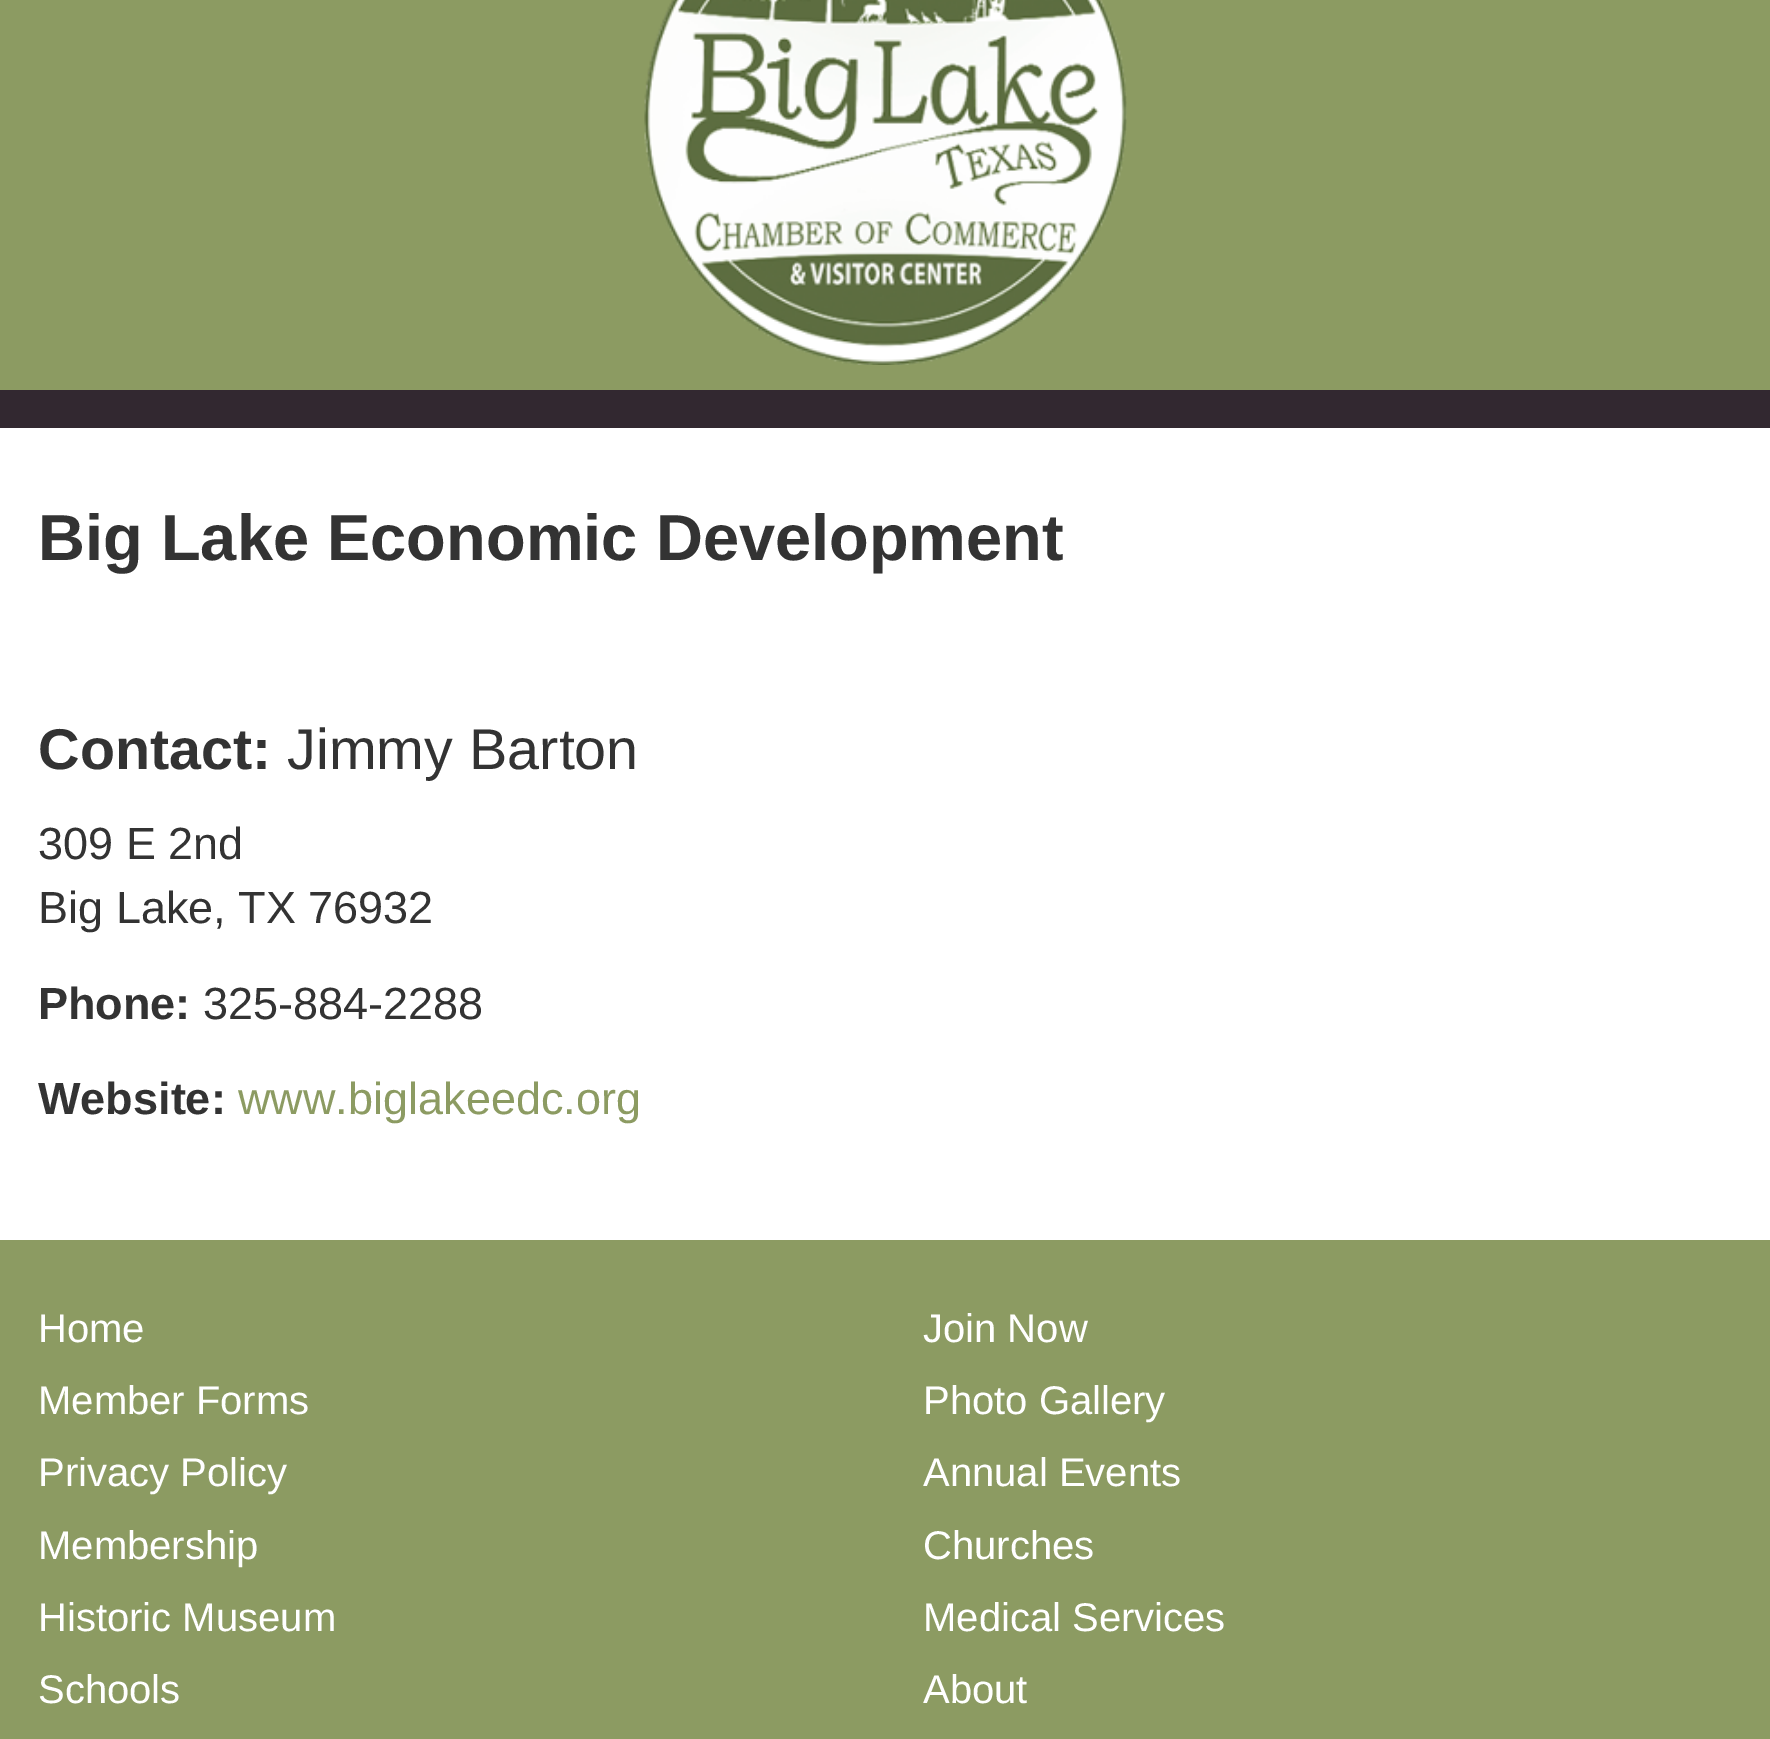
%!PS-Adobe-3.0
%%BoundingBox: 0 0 1770 1739
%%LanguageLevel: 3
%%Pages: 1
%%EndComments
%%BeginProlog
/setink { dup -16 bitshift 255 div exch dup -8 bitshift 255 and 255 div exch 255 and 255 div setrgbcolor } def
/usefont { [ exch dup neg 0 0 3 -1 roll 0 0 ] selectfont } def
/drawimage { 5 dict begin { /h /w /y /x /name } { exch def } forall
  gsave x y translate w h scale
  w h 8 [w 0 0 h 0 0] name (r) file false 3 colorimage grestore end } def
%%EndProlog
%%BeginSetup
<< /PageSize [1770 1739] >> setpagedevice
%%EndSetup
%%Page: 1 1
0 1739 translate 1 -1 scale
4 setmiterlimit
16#FFFFFF setink
0 0 1770 1739 rectfill
16#8C9B62 setink
0 0 1770 390 rectfill
16#322830 setink
0 390 1770 38 rectfill
(img1.raw) 644 0 483 365 drawimage
/LiberationSans-Bold 65 usefont
16#333333 setink
38 560 moveto (Big Lake Economic Development) show
/LiberationSans-Bold 57.5 usefont
38 769 moveto (Contact:) show
/LiberationSans-Regular 57.5 usefont
287 769 moveto (Jimmy Barton) show
/LiberationSans-Regular 45 usefont
38 859 moveto (309 E 2nd) show
38 923 moveto (Big Lake, TX 76932) show
/LiberationSans-Bold 45 usefont
38 1019 moveto (Phone:) show
/LiberationSans-Regular 45 usefont
203 1019 moveto (325-884-2288) show
/LiberationSans-Bold 45 usefont
38 1114 moveto (Website:) show
/LiberationSans-Regular 45 usefont
16#8C9B62 setink
238 1114 moveto (www.biglakeedc.org) show
0 1240 1770 499 rectfill
/LiberationSans-Regular 40 usefont
16#FFFFFF setink
[
    [(Home) 38 1342]
    [(Join Now) 923 1342]
    [(Member Forms) 38 1414]
    [(Photo Gallery) 923 1414]
    [(Privacy Policy) 38 1486]
    [(Annual Events) 923 1486]
    [(Membership) 38 1559]
    [(Churches) 923 1559]
    [(Historic Museum) 38 1631]
    [(Medical Services) 923 1631]
    [(Schools) 38 1703]
    [(About) 923 1703]
] { aload pop moveto show } forall
showpage
%%EOF
